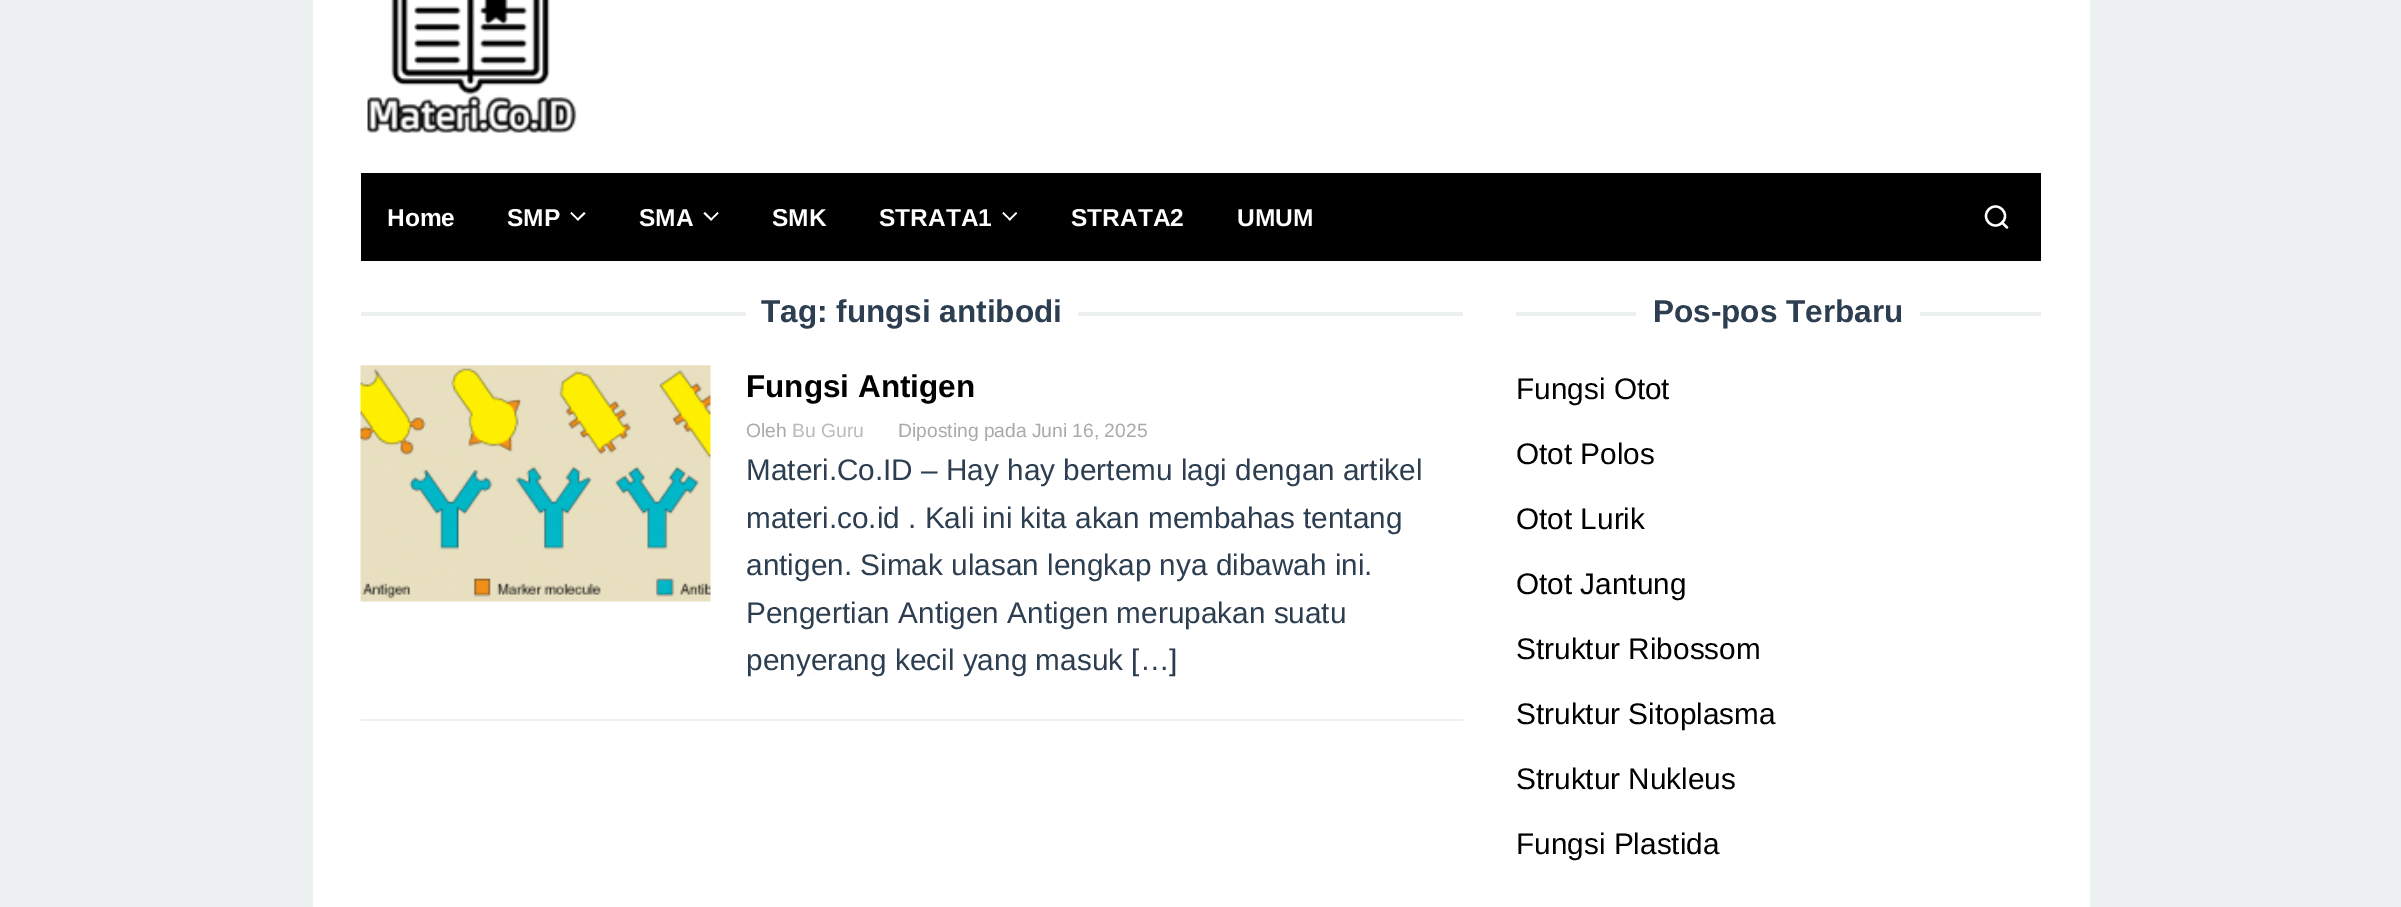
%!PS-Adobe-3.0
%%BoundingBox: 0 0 2401 907
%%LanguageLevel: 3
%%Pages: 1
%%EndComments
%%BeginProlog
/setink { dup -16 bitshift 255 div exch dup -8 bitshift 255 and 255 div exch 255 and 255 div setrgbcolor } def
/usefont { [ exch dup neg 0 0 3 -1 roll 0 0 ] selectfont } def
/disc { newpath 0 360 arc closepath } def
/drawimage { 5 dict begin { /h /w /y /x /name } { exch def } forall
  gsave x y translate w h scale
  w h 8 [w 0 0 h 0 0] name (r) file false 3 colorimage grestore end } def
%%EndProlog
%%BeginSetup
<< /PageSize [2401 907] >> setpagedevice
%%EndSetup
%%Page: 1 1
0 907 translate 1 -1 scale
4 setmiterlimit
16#ECF0F1 setink
0 0 2401 907 rectfill
16#FFFFFF setink
313 0 1777 173 rectfill
(img1.raw) 367 0 210 133 drawimage
313 173 1777 734 rectfill
16#000000 setink
361 173 1680 88 rectfill
/LiberationSans-Bold 24.5 usefont
16#FFFFFF setink
387 226 moveto (Home) show
507 226 moveto (SMP) show
584 212 moveto 585.5 213.5 lineto 578 220.5 lineto 576.5 219.5 lineto closepath fill
571.5 212 moveto 579 219.5 lineto 578 220.5 lineto 570.5 213.5 lineto closepath fill
639 226 moveto (SMA) show
717.5 212 moveto 718.5 213.5 lineto 711 220.5 lineto 710 219.5 lineto closepath fill
705 212 moveto 712.5 219.5 lineto 711 220.5 lineto 703.5 213.5 lineto closepath fill
772 226 moveto (SMK) show
879 226 moveto (STRATA1) show
1016 212 moveto 1017 213.5 lineto 1010 220.5 lineto 1008.5 219.5 lineto closepath fill
1003.5 212 moveto 1011 219.5 lineto 1010 220.5 lineto 1002.5 213.5 lineto closepath fill
1071 226 moveto (STRATA2) show
1237 226 moveto (UMUM) show
2.3 setlinewidth
1995.5 216 9.5 disc stroke
1 setlinecap
1 setlinejoin
2007 227.5 moveto 2002 222.5 lineto stroke
16#ECF0F1 setink
361 312 385 4 rectfill
/LiberationSans-Bold 31.5 usefont
16#2C3E50 setink
761 322 moveto (Tag: fungsi antibodi) show
16#ECF0F1 setink
1078 312 385 4 rectfill
361 719 1102 2 rectfill
(img2.raw) 360 365 351 237 drawimage
16#000000 setink
746 397 moveto (Fungsi Antigen) show
/LiberationSans-Regular 19.25 usefont
16#AAAAAA setink
746 437 moveto (Oleh) show
16#BBBBBB setink
792 437 moveto (Bu Guru) show
16#AAAAAA setink
898 437 moveto (Diposting pada Juni 16, 2025) show
/LiberationSans-Regular 29.75 usefont
16#2C3E50 setink
[
    [(Materi.Co.ID – Hay hay bertemu lagi dengan artikel) 746 480]
    [(materi.co.id . Kali ini kita akan membahas tentang) 746 528]
    [(antigen. Simak ulasan lengkap nya dibawah ini.) 746 575]
    [(Pengertian Antigen Antigen merupakan suatu) 746 623]
    [(penyerang kecil yang masuk […]) 746 670]
] { aload pop moveto show } forall
16#ECF0F1 setink
1516 312 120 4 rectfill
/LiberationSans-Bold 31.5 usefont
16#2C3E50 setink
1653 322 moveto (Pos-pos Terbaru) show
16#ECF0F1 setink
1920 312 121 4 rectfill
/LiberationSans-Regular 29.75 usefont
16#000000 setink
[
    [(Fungsi Otot) 1516 399]
    [(Otot Polos) 1516 464]
    [(Otot Lurik) 1516 529]
    [(Otot Jantung) 1516 594]
    [(Struktur Ribossom) 1516 659]
    [(Struktur Sitoplasma) 1516 724]
    [(Struktur Nukleus) 1516 789]
    [(Fungsi Plastida) 1516 854]
] { aload pop moveto show } forall
showpage
%%EOF
